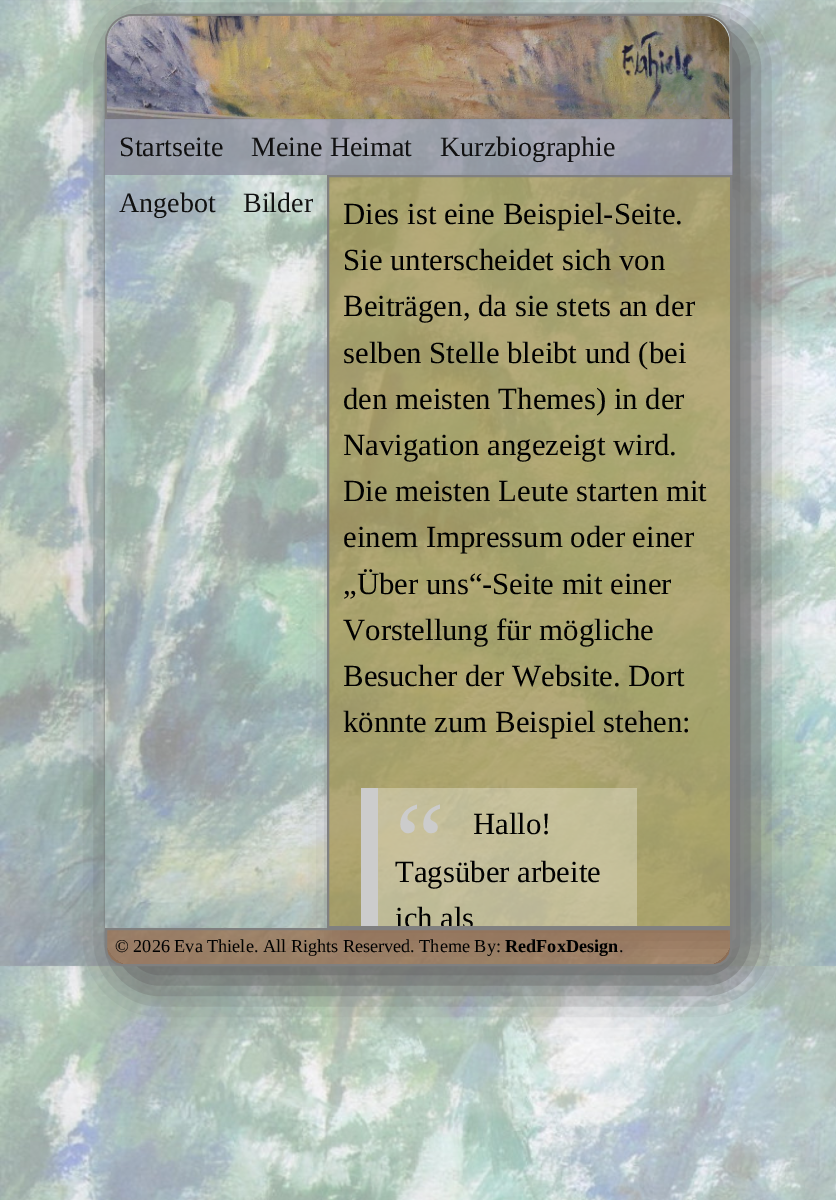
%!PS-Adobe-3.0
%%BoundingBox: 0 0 836 1200
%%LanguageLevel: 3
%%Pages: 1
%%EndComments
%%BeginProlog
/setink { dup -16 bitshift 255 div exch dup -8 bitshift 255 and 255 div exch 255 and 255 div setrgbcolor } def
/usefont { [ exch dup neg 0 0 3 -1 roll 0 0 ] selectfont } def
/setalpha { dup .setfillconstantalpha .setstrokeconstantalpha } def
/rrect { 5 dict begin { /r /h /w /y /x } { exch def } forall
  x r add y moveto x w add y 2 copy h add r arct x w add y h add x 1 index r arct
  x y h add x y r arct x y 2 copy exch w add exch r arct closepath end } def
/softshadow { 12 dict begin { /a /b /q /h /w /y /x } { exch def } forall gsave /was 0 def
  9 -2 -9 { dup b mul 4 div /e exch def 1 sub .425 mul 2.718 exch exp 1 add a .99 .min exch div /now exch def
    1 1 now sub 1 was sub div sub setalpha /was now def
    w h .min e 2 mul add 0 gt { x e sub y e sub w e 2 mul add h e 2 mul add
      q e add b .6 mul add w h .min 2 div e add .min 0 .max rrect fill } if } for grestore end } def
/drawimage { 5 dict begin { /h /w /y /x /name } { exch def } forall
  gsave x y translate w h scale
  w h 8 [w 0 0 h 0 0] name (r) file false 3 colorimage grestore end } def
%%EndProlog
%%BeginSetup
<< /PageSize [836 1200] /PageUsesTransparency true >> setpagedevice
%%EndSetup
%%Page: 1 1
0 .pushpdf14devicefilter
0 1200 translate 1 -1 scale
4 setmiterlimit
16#FFFFFF setink
0 0 836 1200 rectfill
(img1.raw) 0 0 836 1200 drawimage
gsave
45 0 moveto 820 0 lineto 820 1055 lineto 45 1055 lineto closepath 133 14 moveto 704 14 lineto 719.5 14 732 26.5 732 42 curveto 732 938 lineto 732 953.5 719.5 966 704 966 curveto 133 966 lineto 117.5 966 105 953.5 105 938 curveto 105 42 lineto 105 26.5 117.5 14 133 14 curveto closepath eoclip newpath
16#666666 setink
109 18 647 973 39 21 1 softshadow
grestore
16#808080 setink
2 setlinewidth
133 15 moveto 704 15 lineto 719 15 731 27 731 42 curveto 731 118 lineto 106 118 lineto 106 42 lineto 106 27 118 15 133 15 curveto closepath stroke
(img2.raw) 106 15 624 104 drawimage
0.7 setalpha
16#8B8A9C setink
105 119 628 56 rectfill
/LiberationSerif-Regular 28 usefont
1 setalpha
16#111111 setink
119 156 moveto (Startseite) show
gsave
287 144 moveto 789 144 lineto 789 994 lineto 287 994 lineto closepath 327 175 moveto 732 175 lineto 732 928 lineto 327 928 lineto closepath eoclip newpath
16#888888 setink
336 193 404 752 0 16 1 softshadow
grestore
[
    [(Meine Heimat) 251 156]
    [(Kurzbiographie) 440 156]
    [(Angebot) 119 212]
    [(Bilder) 243 212]
] { aload pop moveto show } forall
0.7 setalpha
16#9E8D47 setink
328 176 moveto 731 176 lineto 731 927 lineto 328 927 lineto closepath fill
1 setalpha
16#808080 setink
328 176 moveto 731 176 lineto 731 927 lineto 328 927 lineto closepath stroke
/LiberationSerif-Regular 30.75 usefont
16#000000 setink
[
    [(Dies ist eine Beispiel-Seite.) 343 224]
    [(Sie unterscheidet sich von) 343 270]
    [(Beiträgen, da sie stets an der) 343 316]
    [(selben Stelle bleibt und \(bei) 343 363]
    [(den meisten Themes\) in der) 343 409]
    [(Navigation angezeigt wird.) 343 455]
    [(Die meisten Leute starten mit) 343 501]
    [(einem Impressum oder einer) 343 547]
    [(„Über uns“-Seite mit einer) 343 594]
    [(Vorstellung für mögliche) 343 640]
    [(Besucher der Website. Dort) 343 686]
    [(könnte zum Beispiel stehen:) 343 732]
] { aload pop moveto show } forall
0.3 setalpha
16#FFFFFF setink
378 788 259 138 rectfill
1 setalpha
16#CCCCCC setink
361 788 17 138 rectfill
/LiberationSerif-Regular 112 usefont
395 879 moveto (“) show
/LiberationSerif-Regular 30.75 usefont
16#000000 setink
473 834 moveto (Hallo!) show
395 882 moveto (Tagsüber arbeite) show
gsave
329 177 401 749 rectclip
395 928 moveto (ich als) show
grestore
0.7 setalpha
16#966947 setink
106 929 moveto 731 929 lineto 731 948 lineto 731 957.5 723.5 965 714 965 curveto 123 965 lineto 113.5 965 106 957.5 106 948 curveto closepath fill
1 setalpha
16#808080 setink
106 929 moveto 731 929 lineto 731 948 lineto 731 957.5 723.5 965 714 965 curveto 123 965 lineto 113.5 965 106 957.5 106 948 curveto closepath stroke
/LiberationSerif-Regular 18.2 usefont
16#000000 setink
115 952 moveto (© 2026 Eva Thiele. All Rights Reserved. Theme By:) show
/LiberationSerif-Bold 18.2 usefont
505 952 moveto (RedFoxDesign) show
/LiberationSerif-Regular 18.2 usefont
619 952 moveto (.) show
.poppdf14devicefilter showpage
%%EOF
